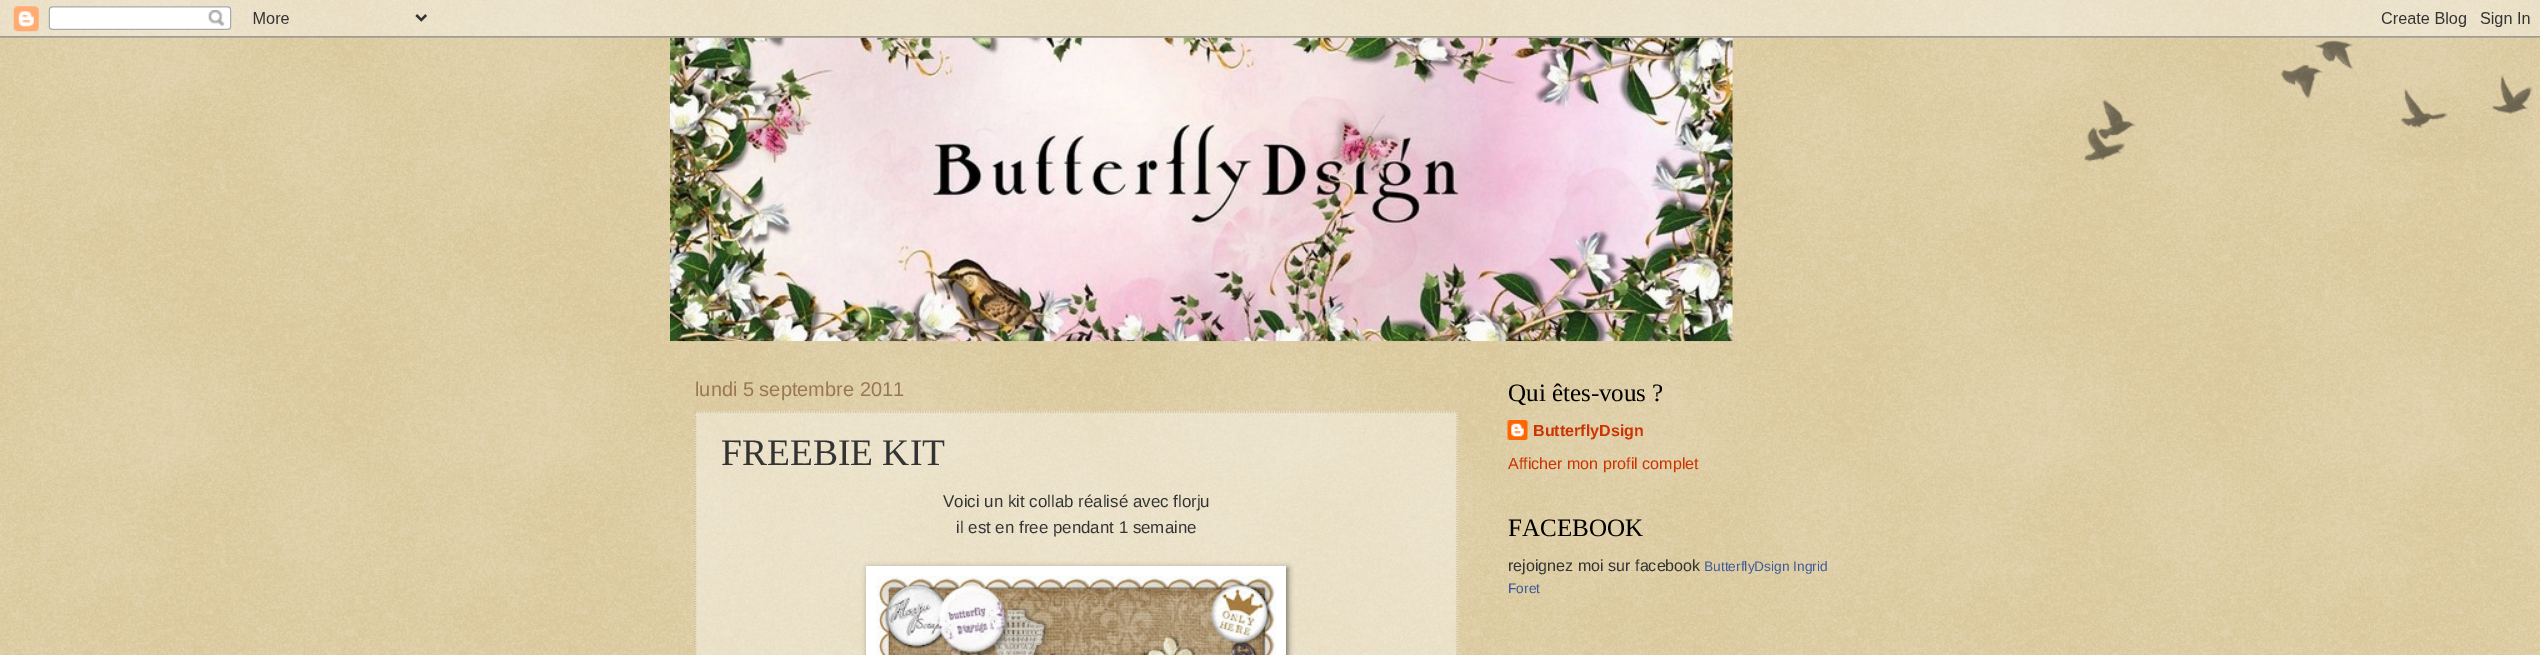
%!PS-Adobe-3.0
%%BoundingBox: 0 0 2540 655
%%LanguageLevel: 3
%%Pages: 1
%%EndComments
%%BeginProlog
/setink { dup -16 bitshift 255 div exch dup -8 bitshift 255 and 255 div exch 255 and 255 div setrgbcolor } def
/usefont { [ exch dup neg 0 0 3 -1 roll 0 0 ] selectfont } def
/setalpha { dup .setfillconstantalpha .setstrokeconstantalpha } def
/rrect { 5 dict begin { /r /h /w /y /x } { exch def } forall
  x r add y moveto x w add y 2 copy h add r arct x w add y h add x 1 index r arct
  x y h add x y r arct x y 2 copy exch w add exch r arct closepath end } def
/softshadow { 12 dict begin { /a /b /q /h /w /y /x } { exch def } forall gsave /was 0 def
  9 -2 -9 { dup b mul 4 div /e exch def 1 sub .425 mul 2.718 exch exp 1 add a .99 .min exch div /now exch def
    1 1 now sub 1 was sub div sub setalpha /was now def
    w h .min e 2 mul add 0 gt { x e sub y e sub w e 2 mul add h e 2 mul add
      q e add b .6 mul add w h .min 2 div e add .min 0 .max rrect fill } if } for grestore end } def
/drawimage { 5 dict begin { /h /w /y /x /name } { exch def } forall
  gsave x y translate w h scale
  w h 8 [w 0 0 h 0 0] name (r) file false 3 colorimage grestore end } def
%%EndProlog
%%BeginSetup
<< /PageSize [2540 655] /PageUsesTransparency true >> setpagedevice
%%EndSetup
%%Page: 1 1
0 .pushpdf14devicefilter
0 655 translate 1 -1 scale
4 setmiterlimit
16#C0A154 setink
0 0 2540 655 rectfill
(img1.raw) 0 0 2540 655 drawimage
(img4.raw) 670 37 1063 305 drawimage
(img2.raw) 0 0 2540 38 drawimage
(img3.raw) 2084 40 449 122 drawimage
/LiberationSans-Regular 20 usefont
16#997755 setink
695 396 moveto (lundi 5 septembre 2011) show
0.4 setalpha
16#FFFFFF setink
695 411 763 244 rectfill
1 setalpha
16#CCBB99 setink
1.2 setlinewidth
[1.25 1.25] 0 setdash
695 412 moveto 1457.5 412 lineto stroke
1457 411 moveto 1457 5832.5 lineto stroke
695.5 411 moveto 695.5 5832.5 lineto stroke
/LiberationSerif-Regular 37.5 usefont
16#333333 setink
721 465 moveto (FREEBIE KIT) show
/LiberationSans-Regular 16.9 usefont
943 507 moveto (Voici un kit collab réalisé avec florju) show
956 533 moveto (il est en free pendant 1 semaine) show
16#000000 setink
868 568 420 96 0 3 0.5 softshadow
16#FFFFFF setink
866 566 420 89 rectfill
(img5.raw) 876 576 401 79 drawimage
/LiberationSerif-Regular 25 usefont
16#000000 setink
1508 401 moveto (Qui êtes-vous ?) show
(img6.raw) 1507 420 21 20 drawimage
/LiberationSans-Bold 16.1 usefont
16#CC3300 setink
1533 436 moveto (ButterflyDsign) show
/LiberationSans-Regular 16.1 usefont
1508 469 moveto (Afficher mon profil complet) show
/LiberationSerif-Regular 25 usefont
16#000000 setink
1508 536 moveto (FACEBOOK) show
/LiberationSans-Regular 16.1 usefont
16#333333 setink
1508 571 moveto (rejoignez moi sur facebook) show
/LiberationSans-Regular 13.75 usefont
16#3B5998 setink
1704 571 moveto (ButterflyDsign Ingrid) show
1508 593 moveto (Foret) show
.poppdf14devicefilter showpage
%%EOF
